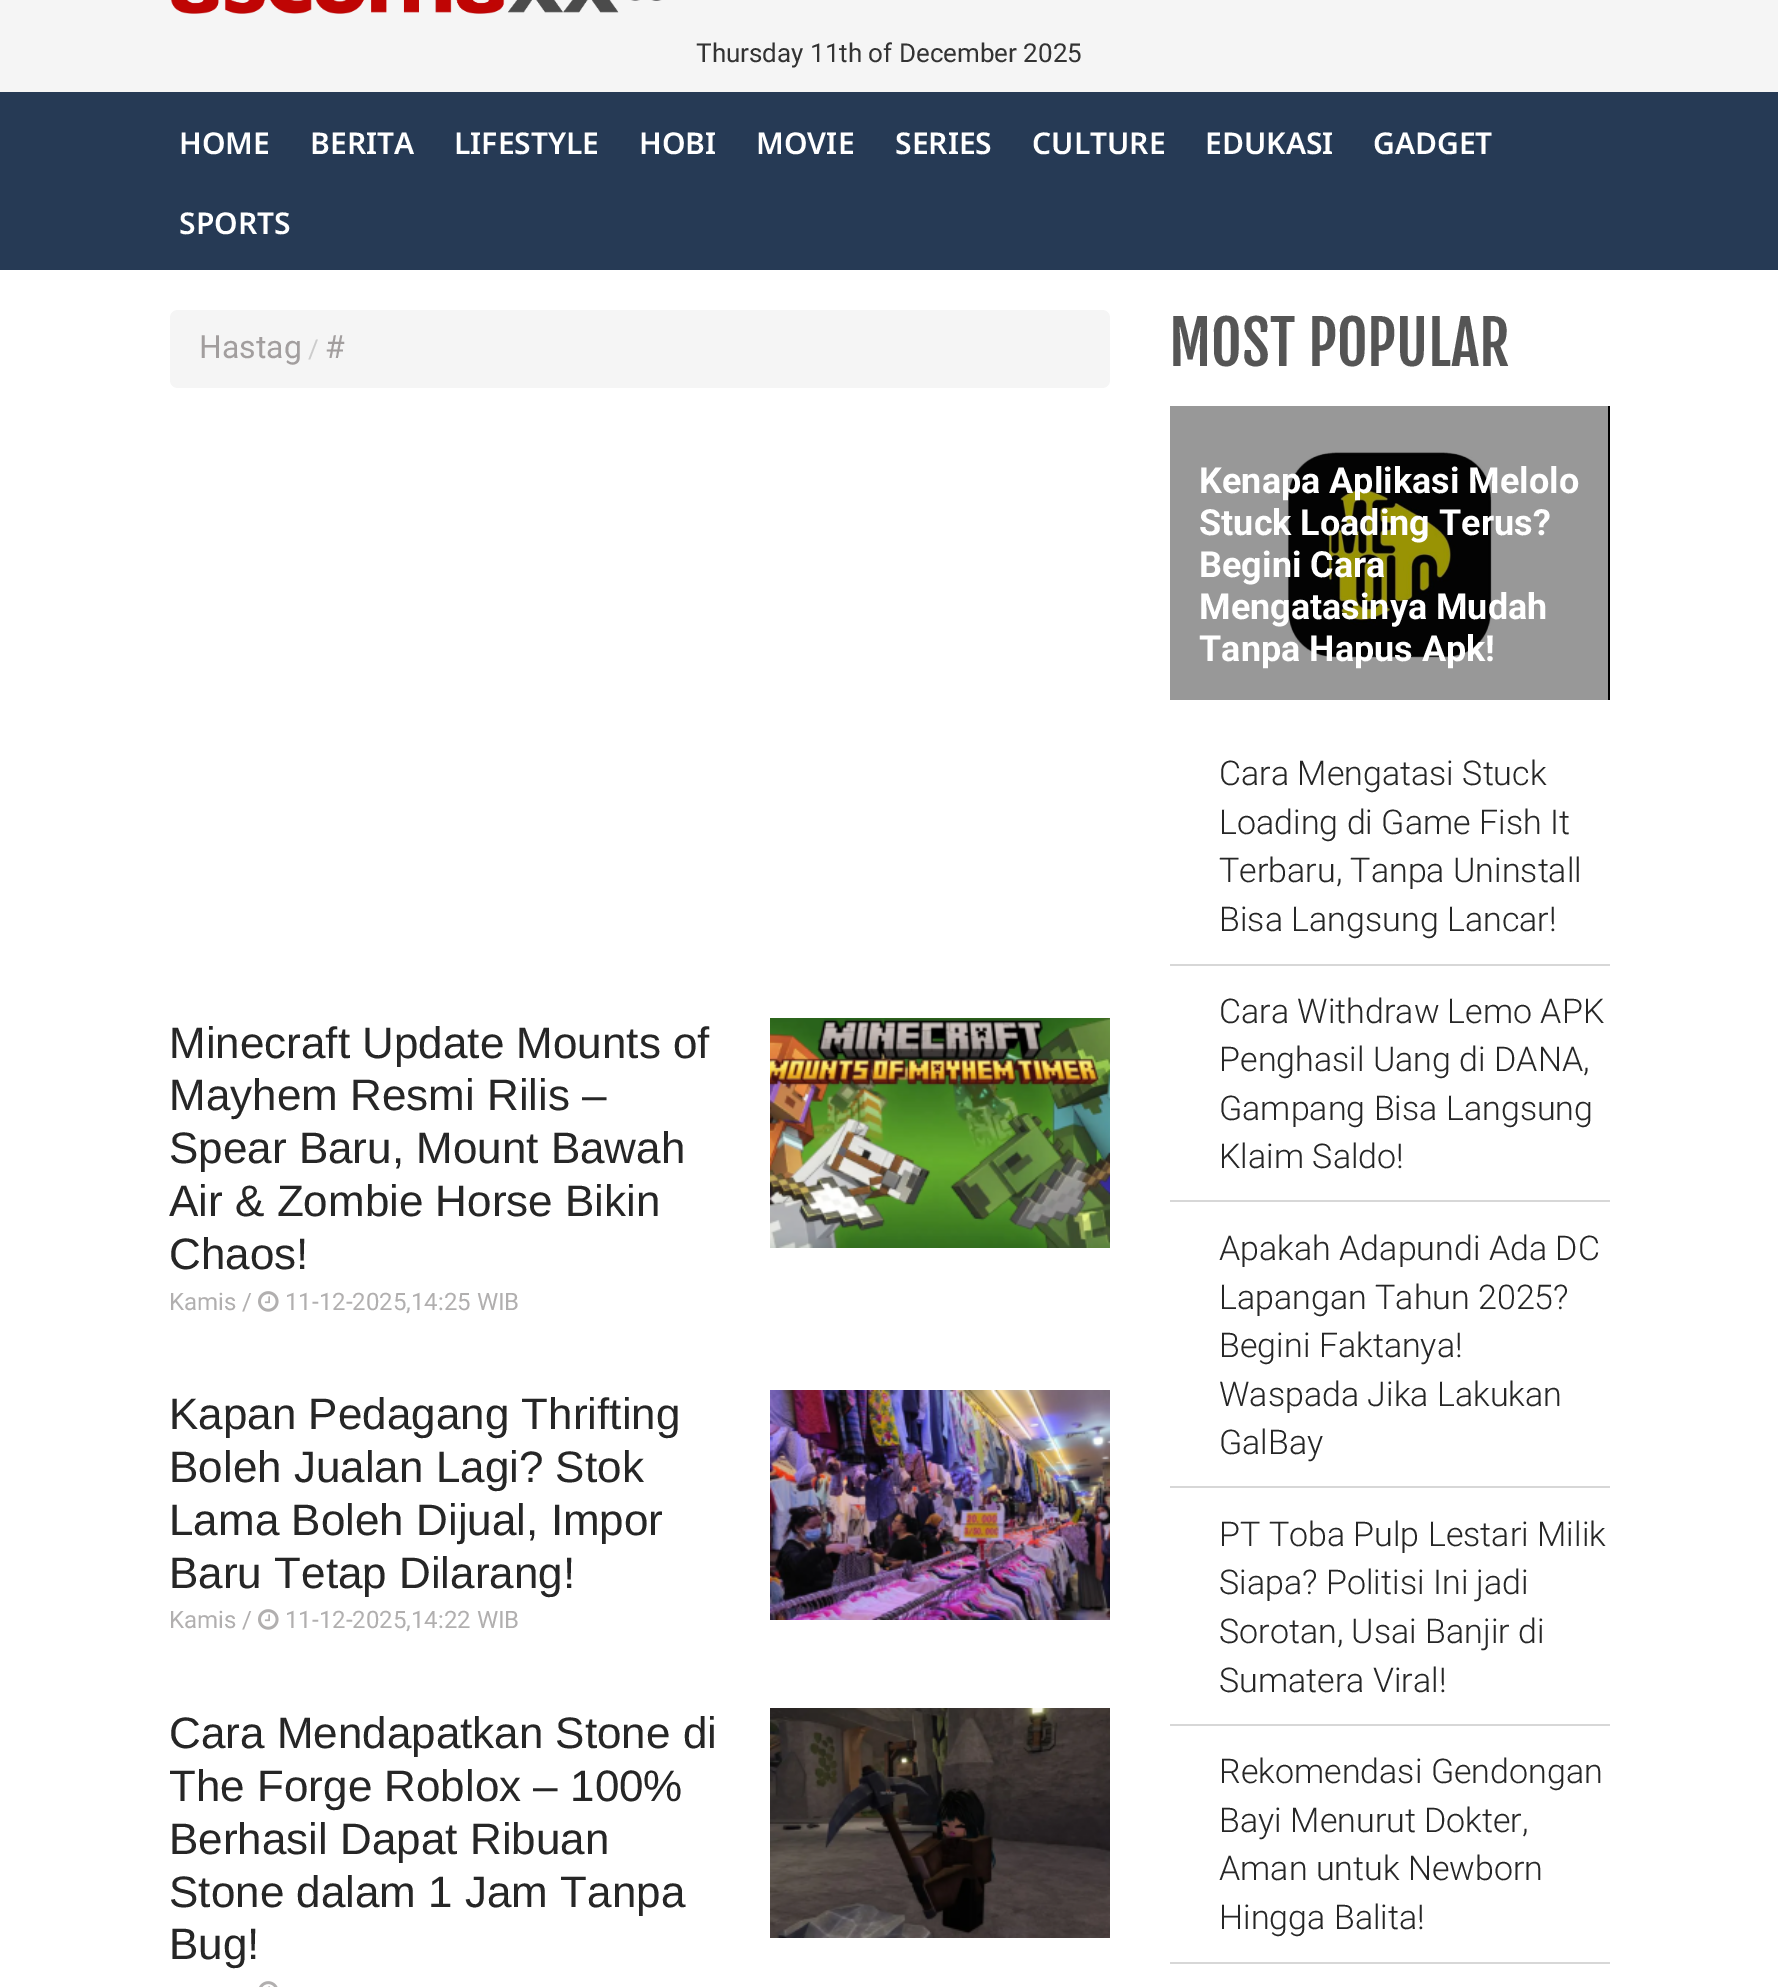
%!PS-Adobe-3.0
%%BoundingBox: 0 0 1778 1987
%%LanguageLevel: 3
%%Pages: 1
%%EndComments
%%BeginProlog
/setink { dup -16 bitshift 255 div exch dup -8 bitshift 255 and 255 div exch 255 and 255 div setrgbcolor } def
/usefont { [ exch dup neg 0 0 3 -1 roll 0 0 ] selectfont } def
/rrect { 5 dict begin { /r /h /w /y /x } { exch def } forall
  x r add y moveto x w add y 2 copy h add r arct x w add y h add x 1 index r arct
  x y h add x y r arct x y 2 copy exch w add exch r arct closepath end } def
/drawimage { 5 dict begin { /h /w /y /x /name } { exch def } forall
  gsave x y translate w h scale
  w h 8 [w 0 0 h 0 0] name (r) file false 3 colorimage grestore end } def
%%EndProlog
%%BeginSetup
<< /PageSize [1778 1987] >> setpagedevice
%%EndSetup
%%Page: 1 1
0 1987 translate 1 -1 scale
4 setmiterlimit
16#FFFFFF setink
0 0 1778 1987 rectfill
16#F5F5F5 setink
0 0 1778 92 rectfill
(img1.raw) 170 0 492 14 drawimage
/Roboto-Regular 26 usefont
16#333333 setink
696 62 moveto (Thursday 11th of December 2025) show
16#263A55 setink
0 92 1778 178 rectfill
/NotoSans-SemiBold 30 usefont
16#FFFFFF setink
[
    [(HOME) 179 154]
    [(BERITA) 310 154]
    [(LIFESTYLE) 454 154]
    [(HOBI) 639 154]
    [(MOVIE) 756 154]
    [(SERIES) 895 154]
    [(CULTURE) 1032 154]
    [(EDUKASI) 1205 154]
    [(GADGET) 1373 154]
    [(SPORTS) 179 234]
] { aload pop moveto show } forall
16#F5F5F5 setink
170 310 940 78 8 rrect fill
/Roboto-Regular 32 usefont
16#A29E9E setink
199 358 moveto (Hastag) show
/Roboto-Regular 26 usefont
16#CCCCCC setink
308 358 moveto (/) show
/Roboto-Regular 32 usefont
16#A29E9E setink
325 358 moveto (#) show
/LiberationSans-Regular 44 usefont
16#262626 setink
[
    [(Minecraft Update Mounts of) 169 1058]
    [(Mayhem Resmi Rilis –) 169 1110]
    [(Spear Baru, Mount Bawah) 169 1163]
    [(Air & Zombie Horse Bikin) 169 1216]
    [(Chaos!) 169 1269]
] { aload pop moveto show } forall
/Roboto-Regular 24 usefont
16#B1AFAF setink
169 1310 moveto (Kamis /) show
(img2.raw) 258 1291 21 21 drawimage
285 1310 moveto (11-12-2025,14:25 WIB) show
(img3.raw) 770 1018 340 230 drawimage
/LiberationSans-Regular 44 usefont
16#262626 setink
[
    [(Kapan Pedagang Thrifting) 169 1429]
    [(Boleh Jualan Lagi? Stok) 169 1482]
    [(Lama Boleh Dijual, Impor) 169 1535]
    [(Baru Tetap Dilarang!) 169 1588]
] { aload pop moveto show } forall
/Roboto-Regular 24 usefont
16#B1AFAF setink
169 1628 moveto (Kamis /) show
(img2.raw) 258 1609 21 21 drawimage
285 1628 moveto (11-12-2025,14:22 WIB) show
(img4.raw) 770 1390 340 230 drawimage
/LiberationSans-Regular 44 usefont
16#262626 setink
[
    [(Cara Mendapatkan Stone di) 169 1748]
    [(The Forge Roblox – 100%) 169 1801]
    [(Berhasil Dapat Ribuan) 169 1854]
    [(Stone dalam 1 Jam Tanpa) 169 1907]
    [(Bug!) 169 1959]
] { aload pop moveto show } forall
(img5.raw) 259 1981 19 6 drawimage
(img6.raw) 770 1708 340 230 drawimage
/FjallaOne-Regular 60 usefont
16#555555 setink
1169 366 moveto (MOST POPULAR) show
16#000000 setink
1170 406 440 294 rectfill
(img7.raw) 1170 406 438 294 drawimage
/Roboto-Bold 36 usefont
16#FFFFFF setink
[
    [(Kenapa Aplikasi Melolo) 1199 493]
    [(Stuck Loading Terus?) 1199 535]
    [(Begini Cara) 1199 577]
    [(Mengatasinya Mudah) 1199 619]
    [(Tanpa Hapus Apk!) 1199 661]
] { aload pop moveto show } forall
16#D7D7D7 setink
1170 964 440 2 rectfill
/Roboto-Light 34 usefont
16#262626 setink
[
    [(Cara Mengatasi Stuck) 1219 785]
    [(Loading di Game Fish It) 1219 834]
    [(Terbaru, Tanpa Uninstall) 1219 882]
    [(Bisa Langsung Lancar!) 1219 931]
] { aload pop moveto show } forall
16#D7D7D7 setink
1170 1200 440 2 rectfill
16#262626 setink
[
    [(Cara Withdraw Lemo APK) 1219 1023]
    [(Penghasil Uang di DANA,) 1219 1071]
    [(Gampang Bisa Langsung) 1219 1120]
    [(Klaim Saldo!) 1219 1168]
] { aload pop moveto show } forall
16#D7D7D7 setink
1170 1486 440 2 rectfill
16#262626 setink
[
    [(Apakah Adapundi Ada DC) 1219 1260]
    [(Lapangan Tahun 2025?) 1219 1309]
    [(Begini Faktanya!) 1219 1357]
    [(Waspada Jika Lakukan) 1219 1406]
    [(GalBay) 1219 1454]
] { aload pop moveto show } forall
16#D7D7D7 setink
1170 1724 440 2 rectfill
16#262626 setink
[
    [(PT Toba Pulp Lestari Milik) 1219 1546]
    [(Siapa? Politisi Ini jadi) 1219 1594]
    [(Sorotan, Usai Banjir di) 1219 1643]
    [(Sumatera Viral!) 1219 1692]
] { aload pop moveto show } forall
16#D7D7D7 setink
1170 1962 440 2 rectfill
16#262626 setink
[
    [(Rekomendasi Gendongan) 1219 1783]
    [(Bayi Menurut Dokter,) 1219 1832]
    [(Aman untuk Newborn) 1219 1880]
    [(Hingga Balita!) 1219 1929]
] { aload pop moveto show } forall
showpage
%%EOF
